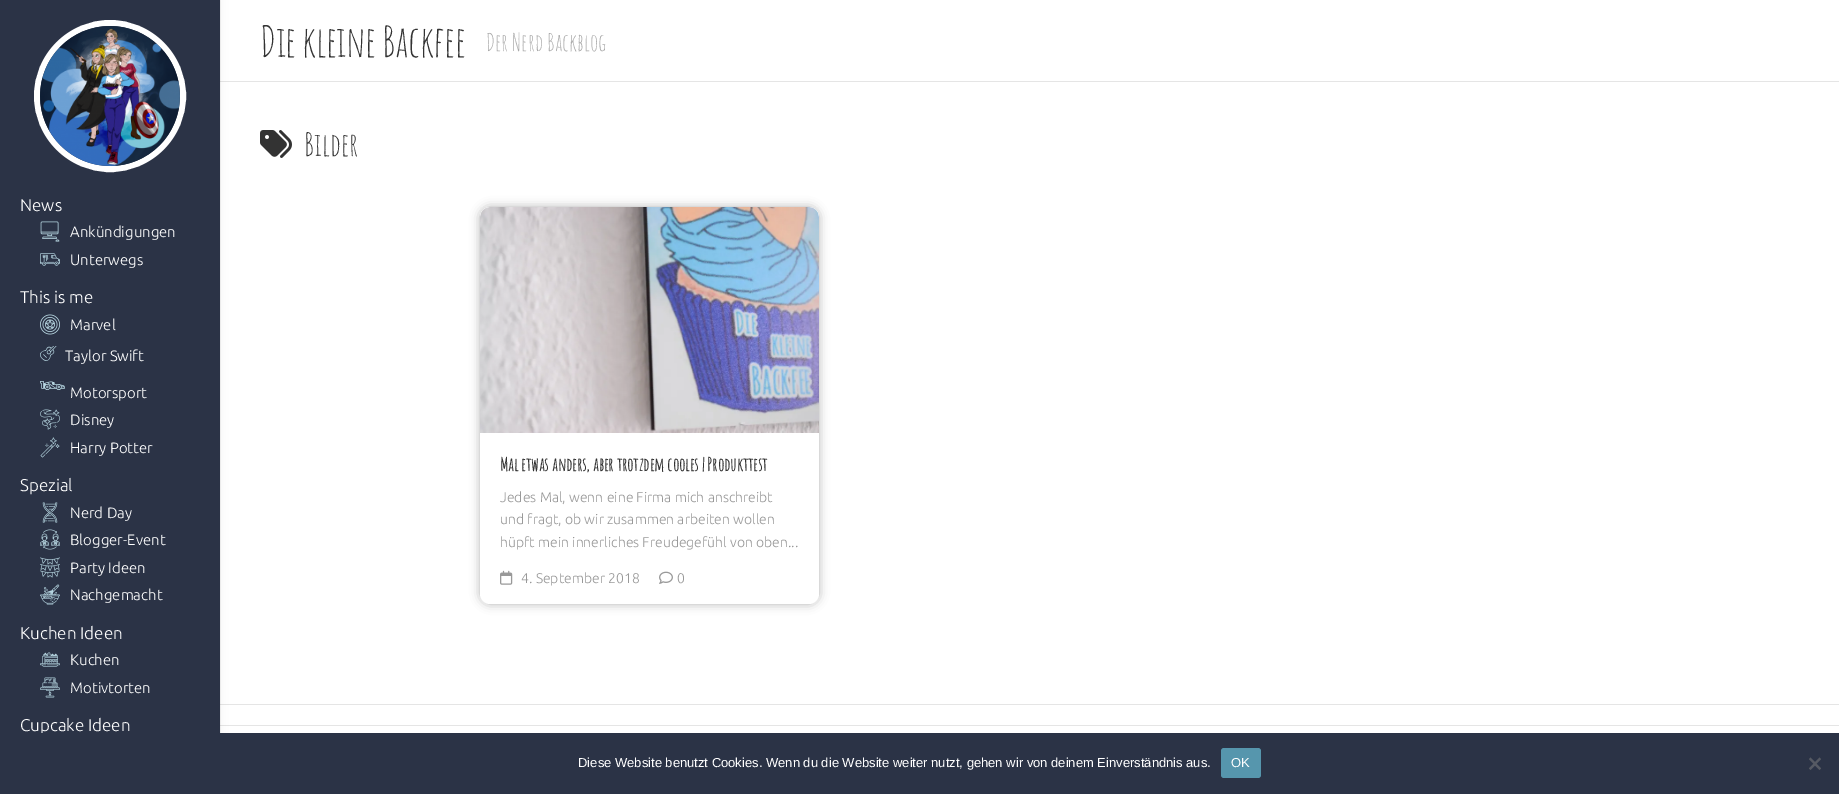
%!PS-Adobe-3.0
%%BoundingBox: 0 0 1839 794
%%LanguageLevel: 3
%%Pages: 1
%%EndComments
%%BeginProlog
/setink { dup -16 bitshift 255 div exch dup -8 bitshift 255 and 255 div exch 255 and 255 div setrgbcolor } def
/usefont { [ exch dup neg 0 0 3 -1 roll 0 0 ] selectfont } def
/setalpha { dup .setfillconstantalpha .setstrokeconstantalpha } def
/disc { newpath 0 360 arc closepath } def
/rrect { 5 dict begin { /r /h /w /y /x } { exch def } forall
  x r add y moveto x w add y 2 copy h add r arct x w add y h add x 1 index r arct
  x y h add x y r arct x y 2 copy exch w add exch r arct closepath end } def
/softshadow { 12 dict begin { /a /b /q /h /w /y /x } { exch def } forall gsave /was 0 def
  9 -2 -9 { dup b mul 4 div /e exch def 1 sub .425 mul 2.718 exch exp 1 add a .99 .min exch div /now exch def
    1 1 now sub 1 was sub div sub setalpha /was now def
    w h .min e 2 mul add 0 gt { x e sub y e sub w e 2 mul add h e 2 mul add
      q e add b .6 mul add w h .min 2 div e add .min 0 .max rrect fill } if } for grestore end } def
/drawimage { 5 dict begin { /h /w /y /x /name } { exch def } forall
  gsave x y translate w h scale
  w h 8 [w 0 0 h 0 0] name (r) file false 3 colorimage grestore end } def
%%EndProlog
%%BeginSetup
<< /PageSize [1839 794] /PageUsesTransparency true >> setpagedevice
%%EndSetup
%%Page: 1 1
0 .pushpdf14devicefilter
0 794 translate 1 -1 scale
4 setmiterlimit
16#FFFFFF setink
0 0 1839 794 rectfill
16#E5E5E5 setink
220 81 1619 1 rectfill
/AmaticSC-Regular 42.5 usefont
16#333333 setink
260 57 moveto -0.5 0 (Die kleine Backfee) ashow
/AmaticSC-Regular 24 usefont
16#AAAAAA setink
486 51 moveto (Der Nerd Backblog) show
[
    [220 704 1619 1 16#E5E5E5]
    [220 725 1619 1 16#E5E5E5]
] { aload pop setink rectfill } forall
0.05 setalpha
[
    [220 0 1 733 16#000000]
] { aload pop setink rectfill } forall
1 setalpha
0 0 220 794 0 5 0.05 softshadow
16#2B3346 setink
0 0 220 733 rectfill
16#FFFFFF setink
6 setlinewidth
110 96 73 disc stroke
(img1.raw) 40 26 140 140 drawimage
/Ubuntu-Light 17 usefont
20 211 moveto (News) show
(img2.raw) 40 221 20 21 drawimage
/Ubuntu-Light 15 usefont
70 237 moveto (Ankündigungen) show
(img3.raw) 40 253 20 13 drawimage
70 265 moveto (Unterwegs) show
/Ubuntu-Light 17 usefont
20 303 moveto (This is me) show
(img4.raw) 40 314 20 21 drawimage
/Ubuntu-Light 15 usefont
70 330 moveto (Marvel) show
(img5.raw) 40 346 17 15 drawimage
65 361 moveto (Taylor Swift) show
(img6.raw) 40 381 25 9 drawimage
70 398 moveto (Motorsport) show
(img7.raw) 40 409 20 21 drawimage
70 425 moveto (Disney) show
(img8.raw) 40 437 20 21 drawimage
70 453 moveto (Harry Potter) show
/Ubuntu-Light 17 usefont
20 491 moveto (Spezial) show
(img9.raw) 42 502 16 21 drawimage
/Ubuntu-Light 15 usefont
70 518 moveto (Nerd Day) show
(img10.raw) 40 529 20 21 drawimage
70 545 moveto (Blogger-Event) show
(img11.raw) 40 557 20 21 drawimage
70 573 moveto (Party Ideen) show
(img12.raw) 40 584 20 21 drawimage
70 600 moveto (Nachgemacht) show
/Ubuntu-Light 17 usefont
20 639 moveto (Kuchen Ideen) show
(img13.raw) 40 652 20 15 drawimage
/Ubuntu-Light 15 usefont
70 665 moveto (Kuchen) show
(img14.raw) 40 677 20 21 drawimage
70 693 moveto (Motivtorten) show
/Ubuntu-Light 17 usefont
20 731 moveto (Cupcake Ideen) show
(img15.raw) 260 130 32 28 drawimage
/AmaticSC-Regular 32 usefont
16#333333 setink
304 156 moveto (Bilder) show
16#000000 setink
480 207 339 397 10 5 0.3 softshadow
16#FFFFFF setink
480 207 339 397 10 rrect fill
(img16.raw) 480 207 339 226 drawimage
/AmaticSC-Bold 18 usefont
16#333333 setink
500 471 moveto (Mal etwas anders, aber trotzdem cooles | Produkttest) show
/Ubuntu-Light 14 usefont
16#999999 setink
[
    [(Jedes Mal, wenn eine Firma mich anschreibt) 500 502]
    [(und fragt, ob wir zusammen arbeiten wollen) 500 524]
    [(hüpft mein innerliches Freudegefühl von oben...) 500 547]
] { aload pop moveto show } forall
(img17.raw) 500 570 13 15 drawimage
521 583 moveto (4. September 2018) show
(img18.raw) 659 571 14 13 drawimage
677 583 moveto (0) show
16#2B3346 setink
0 733 1839 61 rectfill
/LiberationSans-Regular 13 usefont
16#FFFFFF setink
578 767 moveto (Diese Website benutzt Cookies. Wenn du die Website weiter nutzt, gehen wir von deinem Einverständnis aus.) show
16#5696AD setink
1221 748 40 30 3 rrect fill
16#FFFFFF setink
1231 767 moveto (OK) show
16#565A63 setink
1819.5 757.5 moveto 1821 759 lineto 1810.5 770 lineto 1809 768.5 lineto closepath fill
1809 759 moveto 1810.5 757.5 lineto 1821 768.5 lineto 1819.5 770 lineto closepath fill
.poppdf14devicefilter showpage
%%EOF
